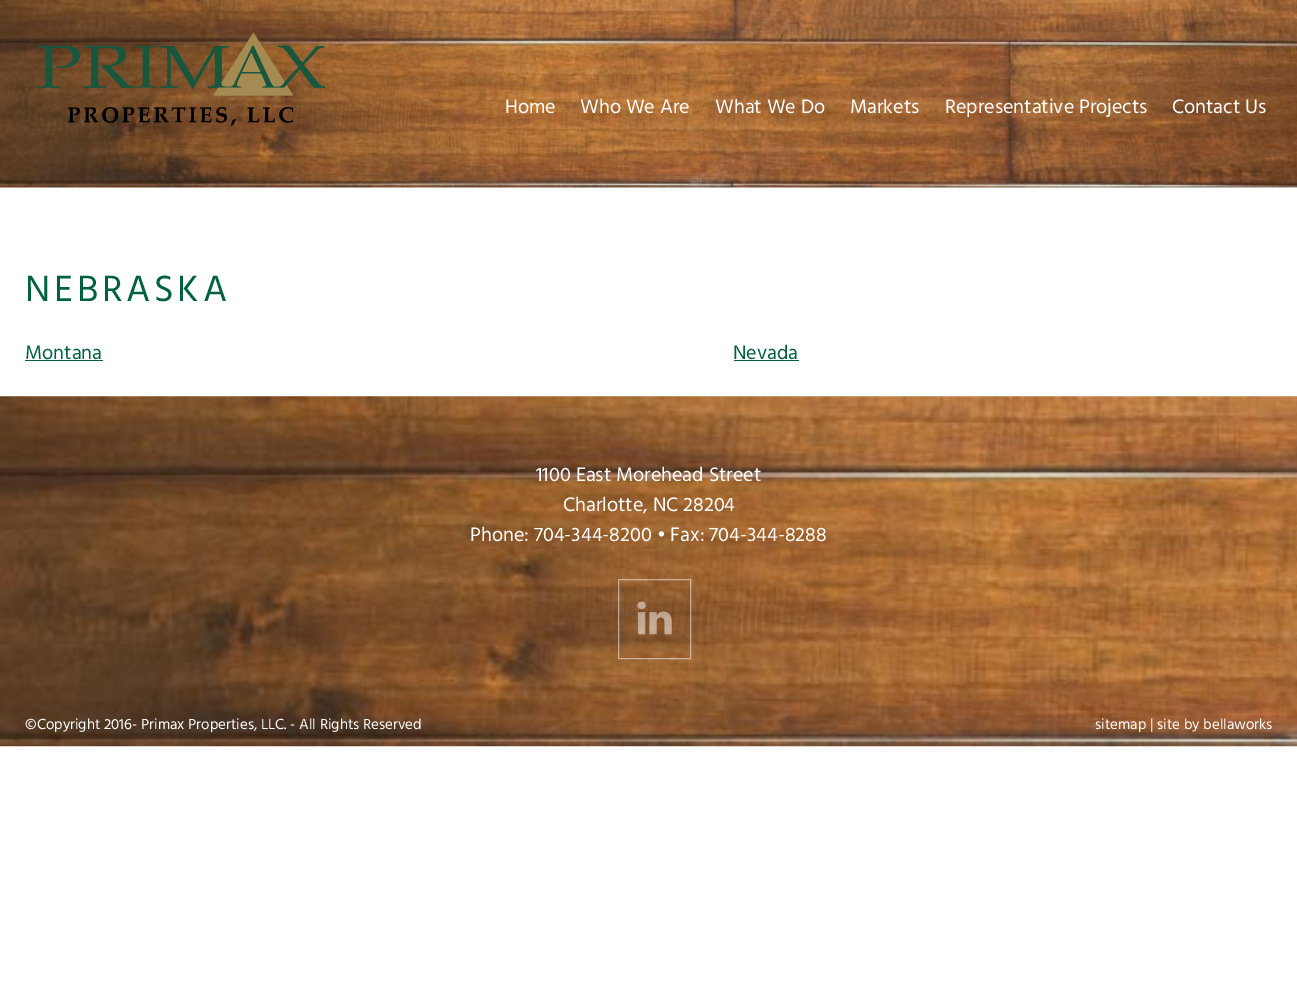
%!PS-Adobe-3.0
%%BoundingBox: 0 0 1297 992
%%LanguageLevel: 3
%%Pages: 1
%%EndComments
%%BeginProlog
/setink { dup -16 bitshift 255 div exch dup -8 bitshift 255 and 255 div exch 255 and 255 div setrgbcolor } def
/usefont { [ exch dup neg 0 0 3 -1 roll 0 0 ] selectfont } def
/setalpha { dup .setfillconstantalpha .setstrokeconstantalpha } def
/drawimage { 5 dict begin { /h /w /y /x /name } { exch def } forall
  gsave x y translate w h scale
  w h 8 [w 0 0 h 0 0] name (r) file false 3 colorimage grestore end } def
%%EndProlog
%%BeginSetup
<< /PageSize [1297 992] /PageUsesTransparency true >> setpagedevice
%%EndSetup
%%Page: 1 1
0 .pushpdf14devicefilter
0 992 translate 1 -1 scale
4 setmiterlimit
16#FFFFFF setink
0 0 1297 992 rectfill
(img1.raw) 0 0 1297 188 drawimage
(img2.raw) 37 32 289 94 drawimage
/HindVadodara-Regular 20 usefont
[
    [(Home) 505 113]
    [(Who We Are) 580 113]
    [(What We Do) 715 113]
    [(Markets) 850 113]
    [(Representative Projects) 945 113]
    [(Contact Us) 1172 113]
] { aload pop moveto show } forall
/HindVadodara-Regular 37.5 usefont
16#006140 setink
25 301 moveto 3.75 0 (NEBRASKA) ashow
/HindVadodara-Regular 20 usefont
25 359 moveto (Montana) show
25 360 78 1 rectfill
733 359 moveto (Nevada) show
734 360 65 1 rectfill
(img3.raw) 0 396 1297 351 drawimage
16#FFFFFF setink
[
    [(1100 East Morehead Street) 536 481]
    [(Charlotte, NC 28204) 563 511]
    [(Phone: 704-344-8200 • Fax: 704-344-8288) 470 541]
] { aload pop moveto show } forall
0.5 setalpha
618.5 579.5 72 79 rectstroke
1 setalpha
(img4.raw) 637 601 35 34 drawimage
/HindVadodara-Regular 15 usefont
25 729 moveto (©Copyright 2016- Primax Properties, LLC. - All Rights Reserved) show
1095 729 moveto (sitemap | site by bellaworks) show
.poppdf14devicefilter showpage
%%EOF
